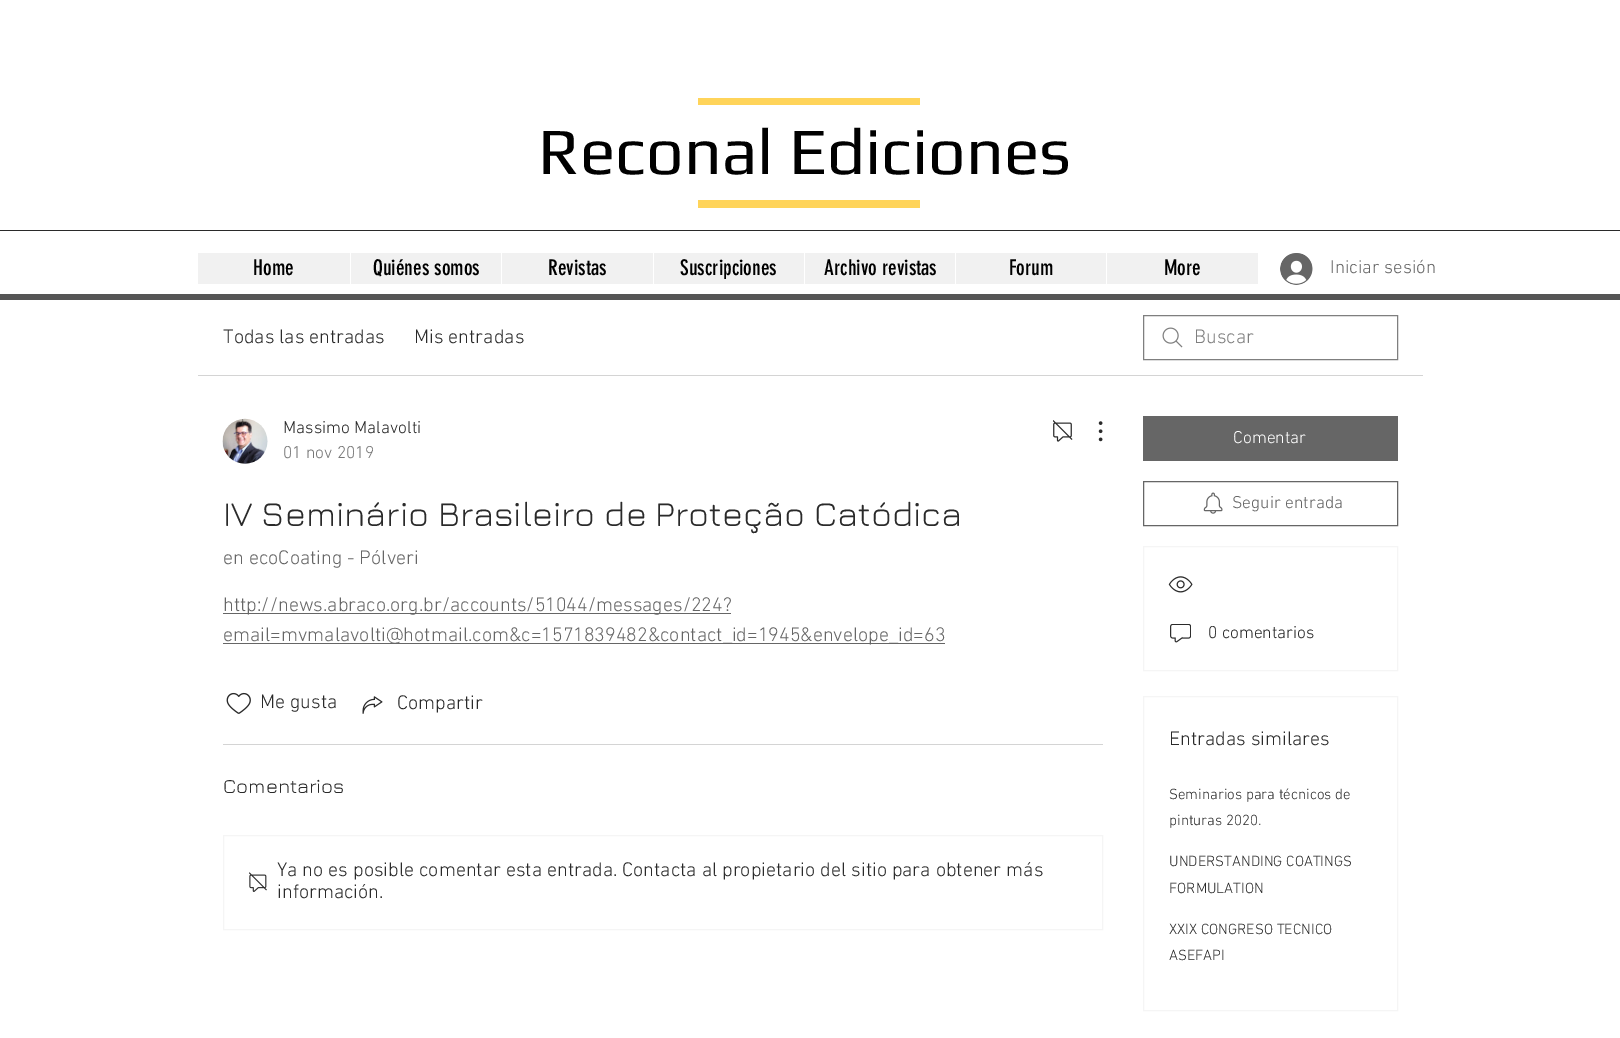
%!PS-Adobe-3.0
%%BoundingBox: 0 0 1620 1038
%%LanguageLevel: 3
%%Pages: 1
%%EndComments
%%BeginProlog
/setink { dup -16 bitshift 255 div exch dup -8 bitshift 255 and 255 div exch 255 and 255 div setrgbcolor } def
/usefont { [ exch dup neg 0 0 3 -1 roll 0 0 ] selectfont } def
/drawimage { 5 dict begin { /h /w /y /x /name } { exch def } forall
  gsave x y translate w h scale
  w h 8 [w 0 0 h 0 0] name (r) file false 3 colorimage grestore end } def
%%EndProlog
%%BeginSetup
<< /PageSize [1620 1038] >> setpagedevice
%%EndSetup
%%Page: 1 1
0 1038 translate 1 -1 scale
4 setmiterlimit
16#FFFFFF setink
0 0 1620 1038 rectfill
16#FFD45A setink
698 98 222 7 rectfill
/Play-Regular 66.25 usefont
16#000000 setink
538 174 moveto (Reconal Ediciones) show
[
    [698 200 222 8 16#FFD45A]
    [0 230 1620 1 16#2A2A2A]
    [198 253 1060 31 16#F1F1F1]
] { aload pop setink rectfill } forall
/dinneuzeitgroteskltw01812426-Regular 21.25 usefont
16#000000 setink
253 275 moveto (Home) show
16#FFFFFF setink
350 253 1 31 rectfill
16#000000 setink
373 275 moveto (Quiénes somos) show
16#FFFFFF setink
501 253 1 31 rectfill
16#000000 setink
548 275 moveto (Revistas) show
16#FFFFFF setink
653 253 1 31 rectfill
16#000000 setink
680 275 moveto (Suscripciones) show
16#FFFFFF setink
804 253 1 31 rectfill
16#000000 setink
824 275 moveto (Archivo revistas) show
16#FFFFFF setink
955 253 1 31 rectfill
16#000000 setink
1009 275 moveto (Forum) show
16#FFFFFF setink
1106 253 1 31 rectfill
16#000000 setink
1164 275 moveto (More) show
(img1.raw) 1280 253 33 32 drawimage
/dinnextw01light-Light 18.75 usefont
16#666666 setink
1330 273 moveto (Iniciar sesión) show
16#555555 setink
0 294 1620 6 rectfill
16#D4D4D4 setink
198 375 1225 1 rectfill
/dinnextw01light-Light 20 usefont
16#2A2A2A setink
223 343 moveto (Todas las entradas) show
414 343 moveto (Mis entradas) show
(img2.raw) 1162 327 21 21 drawimage
16#7F7F7F setink
1143.5 315.5 254 44 rectstroke
1194 343 moveto (Buscar) show
(img3.raw) 222 418 46 46 drawimage
/dinnextw01light-Light 17.5 usefont
16#2A2A2A setink
283 433 moveto (Massimo Malavolti) show
16#777777 setink
283 458 moveto (01 nov 2019) show
(img4.raw) 1053 420 20 22 drawimage
(img5.raw) 1098 421 5 21 drawimage
/Jura-Regular 35 usefont
16#2A2A2A setink
223 526 moveto (IV Seminário Brasileiro de Proteção Catódica) show
/dinnextw01light-Light 20 usefont
16#666666 setink
223 564 moveto (en ecoCoating - Pólveri) show
223 613 508 1 rectfill
223 611 moveto (http://news.abraco.org.br/accounts/51044/messages/224?) show
223 643 722 1 rectfill
223 641 moveto (email=mvmalavolti@hotmail.com&c=1571839482&contact_id=1945&envelope_id=63) show
(img6.raw) 226 692 25 22 drawimage
16#2A2A2A setink
260 708 moveto (Me gusta) show
(img7.raw) 362 696 21 18 drawimage
397 709 moveto (Compartir) show
16#D4D4D4 setink
223 744 880 1 rectfill
/Jura-Regular 20 usefont
16#2A2A2A setink
223 793 moveto (Comentarios) show
16#F5F5F5 setink
223.5 835.5 879 94 rectstroke
(img8.raw) 249 872 18 20 drawimage
/dinnextw01light-Light 20 usefont
16#2A2A2A setink
277 876 moveto (Ya no es posible comentar esta entrada. Contacta al propietario del sitio para obtener más) show
277 898 moveto (información.) show
16#666666 setink
1143 416 255 45 rectfill
/dinnextw01light-Light 17.5 usefont
16#FFFFFF setink
1233 443 moveto (Comentar) show
16#666666 setink
1143.5 481.5 254 44 rectstroke
(img9.raw) 1203 492 20 22 drawimage
1232 508 moveto (Seguir entrada) show
16#F5F5F5 setink
1143.5 546.5 254 124 rectstroke
(img10.raw) 1168 576 25 17 drawimage
(img11.raw) 1170 624 21 19 drawimage
16#2A2A2A setink
1208 638 moveto (0 comentarios) show
16#F5F5F5 setink
1143.5 696.5 254 314 rectstroke
/dinnextw01light-Light 20 usefont
16#2A2A2A setink
1169 745 moveto (Entradas similares) show
/dinnextw01light-Light 15 usefont
[
    [(Seminarios para técnicos de) 1169 799]
    [(pinturas 2020.) 1169 825]
    [(UNDERSTANDING COATINGS) 1169 866]
    [(FORMULATION) 1169 893]
    [(XXIX CONGRESO TECNICO) 1169 934]
    [(ASEFAPI) 1169 960]
] { aload pop moveto show } forall
showpage
%%EOF
